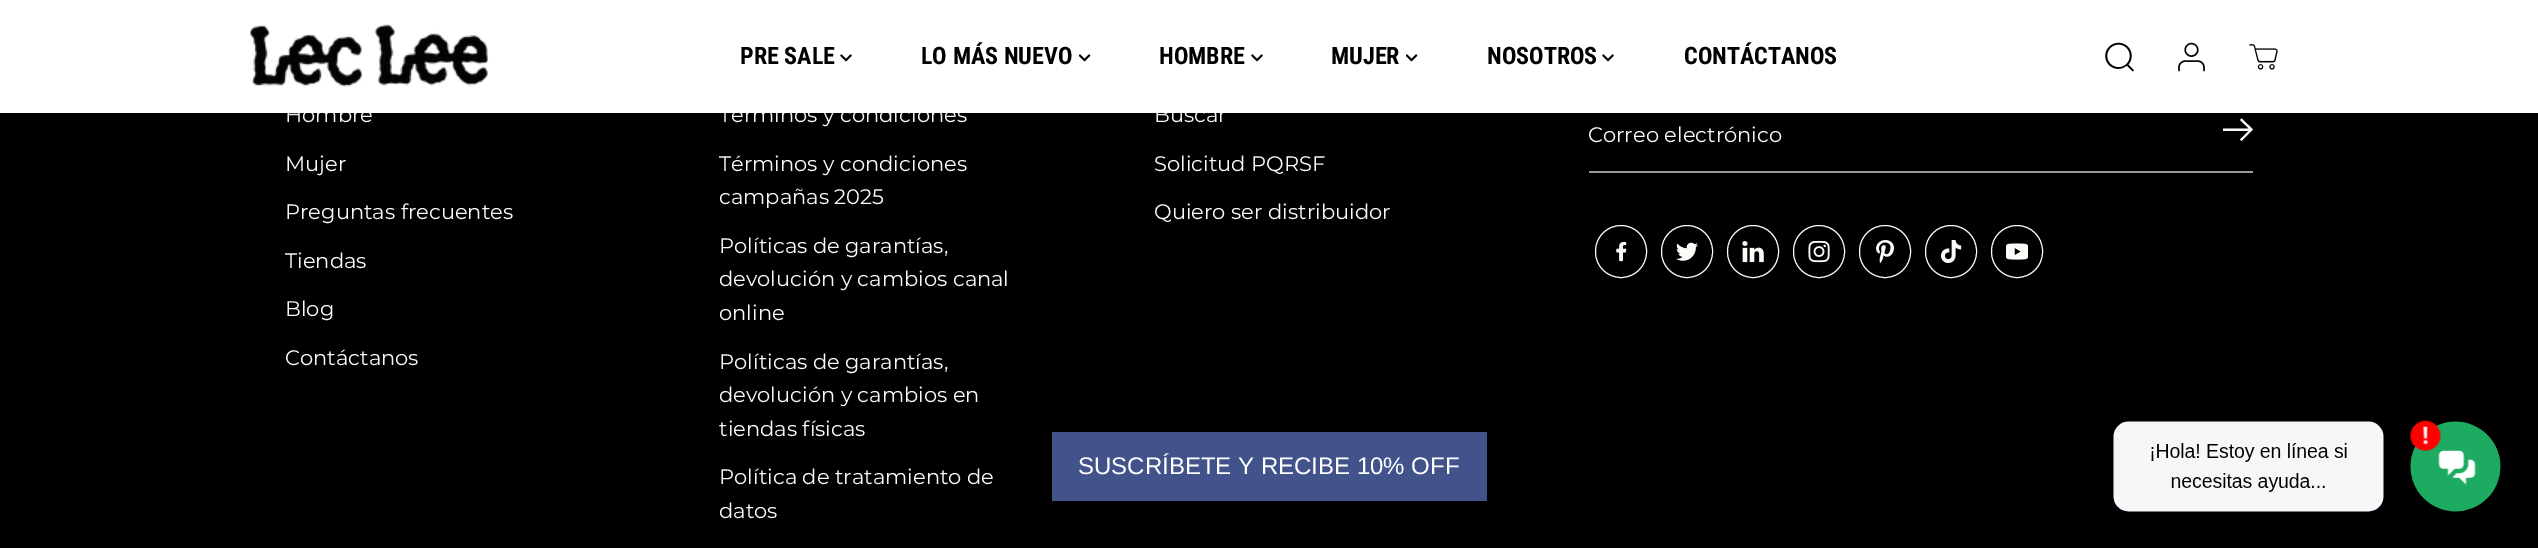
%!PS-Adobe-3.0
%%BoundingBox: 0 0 2538 548
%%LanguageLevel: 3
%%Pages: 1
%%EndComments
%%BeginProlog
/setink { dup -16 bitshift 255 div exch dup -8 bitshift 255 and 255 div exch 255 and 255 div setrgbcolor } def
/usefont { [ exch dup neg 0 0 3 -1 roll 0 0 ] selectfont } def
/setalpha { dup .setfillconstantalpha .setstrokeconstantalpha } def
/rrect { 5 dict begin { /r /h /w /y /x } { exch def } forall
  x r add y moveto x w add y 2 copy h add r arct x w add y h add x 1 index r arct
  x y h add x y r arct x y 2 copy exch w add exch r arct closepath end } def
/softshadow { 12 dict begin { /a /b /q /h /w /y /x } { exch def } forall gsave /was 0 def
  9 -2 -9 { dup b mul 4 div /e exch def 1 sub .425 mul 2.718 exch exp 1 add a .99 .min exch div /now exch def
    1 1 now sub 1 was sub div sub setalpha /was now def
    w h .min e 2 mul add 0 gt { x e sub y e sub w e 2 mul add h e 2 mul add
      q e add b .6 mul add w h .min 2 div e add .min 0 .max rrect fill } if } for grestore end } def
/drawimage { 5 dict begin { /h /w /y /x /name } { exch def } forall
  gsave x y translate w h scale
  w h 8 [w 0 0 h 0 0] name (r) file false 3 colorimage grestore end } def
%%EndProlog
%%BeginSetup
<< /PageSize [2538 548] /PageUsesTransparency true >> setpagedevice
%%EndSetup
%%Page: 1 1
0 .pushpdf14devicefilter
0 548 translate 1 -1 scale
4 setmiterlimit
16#000000 setink
0 0 2538 548 rectfill
/Montserrat-Regular 21 usefont
16#FCFBF7 setink
[
    [(Hombre) 285 122]
    [(Términos y condiciones) 719 122]
    [(Buscar) 1154 122]
] { aload pop moveto show } forall
16#FFFFFF setink
0 0 2538 113 rectfill
16#FCFBF7 setink
2251 131 moveto 2223 131 lineto 2223 128.5 lineto 2251 128.5 lineto closepath 2241.5 141 moveto 2240 139.5 lineto 2250 129.5 lineto 2240 120 lineto 2241.5 118.5 lineto 2253 129.5 lineto closepath fill
gsave
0 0 moveto 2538 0 lineto 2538 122 lineto 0 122 lineto closepath 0 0 moveto 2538 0 lineto 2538 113 lineto 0 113 lineto closepath eoclip newpath
16#000000 setink
0 3 2538 113 0 1.5 0.05 softshadow
grestore
(img1.raw) 250 24 239 63 drawimage
/RobotoCondensed-Bold 24 usefont
16#000000 setink
740 64 moveto (PRE SALE) show
(img2.raw) 840 54 12 8 drawimage
921 64 moveto (LO MÁS NUEVO) show
(img3.raw) 1079 54 12 8 drawimage
1159 64 moveto (HOMBRE) show
(img2.raw) 1251 54 12 8 drawimage
1331 64 moveto (MUJER) show
(img3.raw) 1406 54 12 8 drawimage
1487 64 moveto (NOSOTROS) show
(img2.raw) 1602 54 12 8 drawimage
1684 64 moveto (CONTÁCTANOS) show
(img4.raw) 2105 42 29 30 drawimage
(img5.raw) 2178 42 27 30 drawimage
(img6.raw) 2249 44 29 26 drawimage
/Montserrat-Regular 21 usefont
16#FCFBF7 setink
[
    [(Mujer) 285 171]
    [(Preguntas frecuentes) 285 219]
    [(Tiendas) 285 268]
    [(Blog) 285 316]
    [(Contáctanos) 285 365]
    [(Términos y condiciones) 719 171]
    [(campañas 2025) 719 204]
    [(Políticas de garantías,) 719 253]
    [(devolución y cambios canal) 719 286]
    [(online) 719 320]
    [(Políticas de garantías,) 719 369]
    [(devolución y cambios en) 719 402]
    [(tiendas físicas) 719 436]
    [(Política de tratamiento de) 719 484]
    [(datos) 719 518]
    [(Solicitud PQRSF) 1154 171]
    [(Quiero ser distribuidor) 1154 219]
] { aload pop moveto show } forall
16#999999 setink
1589 171 664 2 rectfill
16#FCFBF7 setink
1588 142 moveto (Correo electrónico) show
1595.5 225.5 51 52 25.5 rrect stroke
(img7.raw) 1616 241 11 21 drawimage
1661.5 225.5 51 52 25.5 rrect stroke
(img8.raw) 1676 242 22 19 drawimage
1727.5 225.5 51 52 25.5 rrect stroke
(img9.raw) 1742 241 22 22 drawimage
1793.5 225.5 51 52 25.5 rrect stroke
(img10.raw) 1808 240 22 23 drawimage
1859.5 225.5 51 52 25.5 rrect stroke
(img11.raw) 1876 240 18 23 drawimage
1925.5 225.5 51 52 25.5 rrect stroke
(img12.raw) 1940 240 22 23 drawimage
1991.5 225.5 51 52 25.5 rrect stroke
(img13.raw) 2006 243 22 17 drawimage
(img14.raw) 2112 420 389 96 drawimage
16#42538C setink
1052 432 435 69 rectfill
/LiberationSans-Regular 24 usefont
16#FFFFFF setink
1078 474 moveto (SUSCRÍBETE Y RECIBE 10% OFF) show
.poppdf14devicefilter showpage
%%EOF
